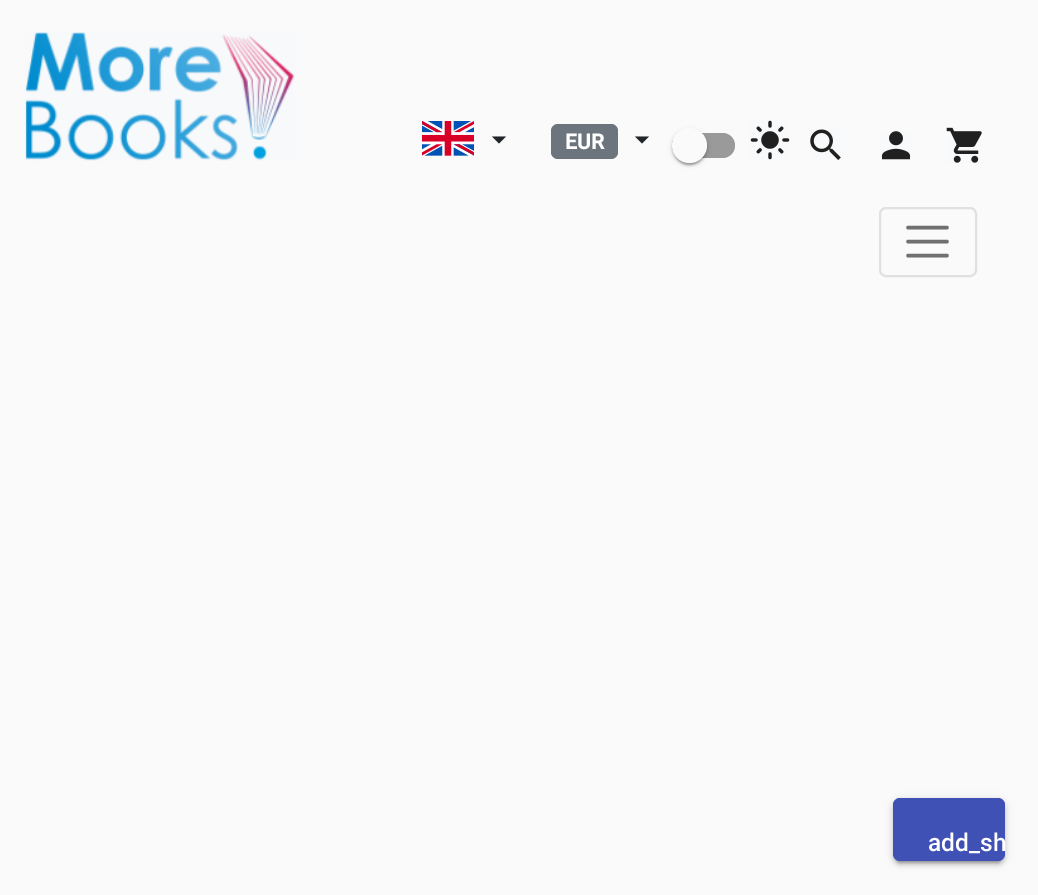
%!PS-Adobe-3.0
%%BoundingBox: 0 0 1038 895
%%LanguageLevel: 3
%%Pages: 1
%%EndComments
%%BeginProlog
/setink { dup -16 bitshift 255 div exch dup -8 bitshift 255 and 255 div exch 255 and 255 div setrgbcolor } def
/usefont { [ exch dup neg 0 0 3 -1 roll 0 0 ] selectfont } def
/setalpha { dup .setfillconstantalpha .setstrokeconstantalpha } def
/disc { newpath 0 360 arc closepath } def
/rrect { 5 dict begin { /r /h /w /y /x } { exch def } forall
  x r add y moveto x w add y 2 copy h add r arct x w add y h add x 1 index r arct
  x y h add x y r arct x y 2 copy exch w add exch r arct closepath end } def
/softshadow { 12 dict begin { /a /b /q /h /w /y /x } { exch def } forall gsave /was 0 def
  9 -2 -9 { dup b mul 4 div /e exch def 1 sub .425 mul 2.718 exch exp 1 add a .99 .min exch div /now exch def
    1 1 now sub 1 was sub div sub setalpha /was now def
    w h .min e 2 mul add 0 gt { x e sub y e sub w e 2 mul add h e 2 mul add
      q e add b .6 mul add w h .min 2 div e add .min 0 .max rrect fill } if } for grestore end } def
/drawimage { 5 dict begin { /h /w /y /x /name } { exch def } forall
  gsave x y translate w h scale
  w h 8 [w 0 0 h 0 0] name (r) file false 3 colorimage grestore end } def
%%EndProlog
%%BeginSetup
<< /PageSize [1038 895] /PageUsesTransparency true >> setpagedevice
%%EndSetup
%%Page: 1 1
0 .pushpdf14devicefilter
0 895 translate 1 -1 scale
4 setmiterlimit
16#FAFAFA setink
0 0 1038 895 rectfill
(img1.raw) 25 32 270 129 drawimage
(img2.raw) 422 121 52 35 drawimage
16#212529 setink
492 136.5 moveto 506 136.5 lineto 499 143.5 lineto closepath fill
16#6C757D setink
551 124 67 35 7 rrect fill
/Roboto-Bold 21 usefont
16#FFFFFF setink
565 149 moveto (EUR) show
16#212529 setink
635 136.5 moveto 649 136.5 lineto 642 143.5 lineto closepath fill
16#9A9A9B setink
672 133 63 25 12.5 rrect fill
16#000000 setink
672 130 35 35 17.5 2.5 0.12 softshadow
672 130 35 35 17.5 1 0.14 softshadow
674 133 31 32 15.5 1 0.2 softshadow
16#FAFAFA setink
689.5 145.5 17.5 disc fill
(img3.raw) 750 120 40 40 drawimage
(img4.raw) 810 129 31 31 drawimage
(img5.raw) 881 131 30 29 drawimage
(img6.raw) 946 127 36 36 drawimage
16#DFE0E1 setink
2 setlinewidth
880 208 96 68 6 rrect stroke
16#707071 setink
3.5 setlinewidth
1 setlinecap
908 227.5 moveto 947 227.5 lineto 908 241.5 moveto 947 241.5 lineto 908 255.5 moveto 947 255.5 lineto stroke
16#000000 setink
893 800 112 63 7 4.5 0.12 softshadow
893 802 112 63 7 2 0.14 softshadow
896 807 105 56 4 1 0.2 softshadow
16#3F51B5 setink
893 798 112 63 7 rrect fill
/Roboto-Medium 24.5 usefont
16#FFFFFF setink
928 851 moveto (add_sh) show
.poppdf14devicefilter showpage
%%EOF
